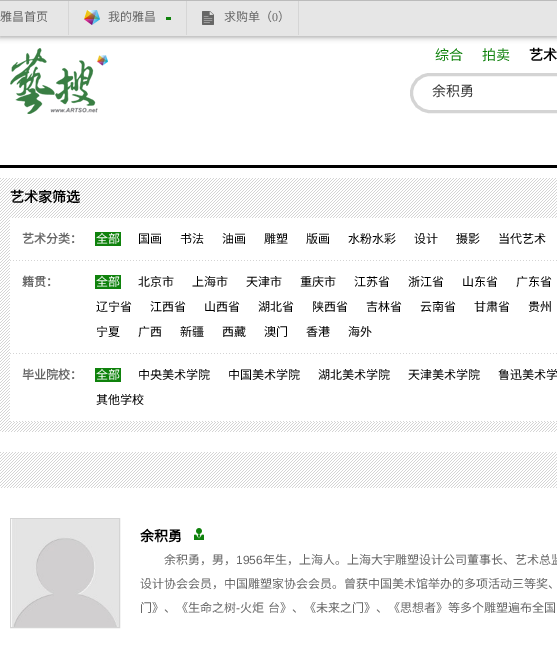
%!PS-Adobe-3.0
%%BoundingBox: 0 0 557 652
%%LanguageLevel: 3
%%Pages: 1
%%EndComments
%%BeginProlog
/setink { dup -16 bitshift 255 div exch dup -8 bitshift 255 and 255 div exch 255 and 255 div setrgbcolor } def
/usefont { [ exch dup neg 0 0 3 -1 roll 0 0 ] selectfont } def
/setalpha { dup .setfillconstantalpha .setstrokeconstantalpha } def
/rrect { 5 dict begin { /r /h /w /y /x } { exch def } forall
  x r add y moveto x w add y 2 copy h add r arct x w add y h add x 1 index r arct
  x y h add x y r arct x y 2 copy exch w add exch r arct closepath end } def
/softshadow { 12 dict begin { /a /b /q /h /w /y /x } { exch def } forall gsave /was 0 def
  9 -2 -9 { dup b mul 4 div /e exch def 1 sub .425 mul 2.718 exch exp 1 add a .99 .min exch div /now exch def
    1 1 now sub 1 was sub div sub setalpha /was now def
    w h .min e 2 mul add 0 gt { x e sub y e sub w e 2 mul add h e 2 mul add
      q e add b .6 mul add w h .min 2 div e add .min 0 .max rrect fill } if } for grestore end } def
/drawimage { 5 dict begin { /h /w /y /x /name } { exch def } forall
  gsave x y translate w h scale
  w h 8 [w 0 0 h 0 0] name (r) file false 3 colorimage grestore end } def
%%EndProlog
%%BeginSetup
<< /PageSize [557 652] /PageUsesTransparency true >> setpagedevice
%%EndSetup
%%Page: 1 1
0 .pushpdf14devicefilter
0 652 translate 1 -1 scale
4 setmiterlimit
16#FFFFFF setink
0 0 557 652 rectfill
16#999999 setink
0 1 557 36 0 3 1 softshadow
16#E6E6E6 setink
0 1 557 35 rectfill
16#BBBBBB setink
0 0 557 1 rectfill
/NotoSansCJKSC-Regular 12 usefont
16#666666 setink
0 21 moveto (雅昌首页) show
16#D6D6D6 setink
186 1 1 34 rectfill
68 1 1 34 rectfill
(img1.raw) 84 10 16 15 drawimage
16#666666 setink
108 21 moveto (我的雅昌) show
16#0F820C setink
166 17 5 3 rectfill
(img2.raw) 202 11 12 14 drawimage
16#D5D5D5 setink
298 1 1 34 rectfill
16#666666 setink
224 21 moveto (求购单（) show
/LiberationSerif-Regular 12 usefont
272 21 moveto (0) show
/NotoSansCJKSC-Regular 12 usefont
278 21 moveto (）) show
(img3.raw) 10 48 98 66 drawimage
/NotoSansCJKSC-Regular 14 usefont
16#0F820C setink
435 60 moveto (综合) show
482 60 moveto (拍卖) show
/NotoSansCJKSC-Bold 14 usefont
16#000000 setink
529 60 moveto (艺术) show
16#D4D4D4 setink
3 setlinewidth
411.5 74.5 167 37 18.5 rrect stroke
/NotoSansCJKSC-Regular 14 usefont
16#333333 setink
432 96 moveto (余积勇) show
16#000000 setink
0 165 557 3 rectfill
(img4.raw) 0 178 557 254 drawimage
/NotoSansCJKSC-Bold 14 usefont
10 202 moveto (艺术家筛选) show
16#FFFFFF setink
10 218 547 203 rectfill
(img5.raw) 10 260 547 1 drawimage
/NotoSansCJKSC-Bold 12 usefont
16#666666 setink
22 243 moveto (艺术分类：) show
16#0F820C setink
95 232 26 14 rectfill
/NotoSansCJKSC-Regular 12 usefont
16#FEFEFE setink
96 243 moveto (全部) show
16#000000 setink
[
    [(国画) 138 243]
    [(书法) 180 243]
    [(油画) 222 243]
    [(雕塑) 264 243]
    [(版画) 306 243]
    [(水粉水彩) 348 243]
    [(设计) 414 243]
    [(摄影) 456 243]
    [(当代艺术) 498 243]
] { aload pop moveto show } forall
(img5.raw) 10 353 547 1 drawimage
/NotoSansCJKSC-Bold 12 usefont
16#666666 setink
22 286 moveto (籍贯：) show
16#0F820C setink
95 275 26 14 rectfill
/NotoSansCJKSC-Regular 12 usefont
16#FEFEFE setink
96 286 moveto (全部) show
16#000000 setink
[
    [(北京市) 138 286]
    [(上海市) 192 286]
    [(天津市) 246 286]
    [(重庆市) 300 286]
    [(江苏省) 354 286]
    [(浙江省) 408 286]
    [(山东省) 462 286]
    [(广东省) 516 286]
    [(辽宁省) 96 311]
    [(江西省) 150 311]
    [(山西省) 204 311]
    [(湖北省) 258 311]
    [(陕西省) 312 311]
    [(吉林省) 366 311]
    [(云南省) 420 311]
    [(甘肃省) 474 311]
    [(贵州) 528 311]
    [(宁夏) 96 336]
    [(广西) 138 336]
    [(新疆) 180 336]
    [(西藏) 222 336]
    [(澳门) 264 336]
    [(香港) 306 336]
    [(海外) 348 336]
] { aload pop moveto show } forall
(img5.raw) 10 421 547 1 drawimage
/NotoSansCJKSC-Bold 12 usefont
16#666666 setink
22 379 moveto (毕业院校：) show
16#0F820C setink
95 368 26 14 rectfill
/NotoSansCJKSC-Regular 12 usefont
16#FEFEFE setink
96 379 moveto (全部) show
16#000000 setink
[
    [(中央美术学院) 138 379]
    [(中国美术学院) 228 379]
    [(湖北美术学院) 318 379]
    [(天津美术学院) 408 379]
    [(鲁迅美术学) 498 379]
    [(其他学校) 96 404]
] { aload pop moveto show } forall
(img6.raw) 0 452 557 36 drawimage
16#D4D4D4 setink
1 setlinewidth
10.5 518.5 109 109 rectstroke
(img7.raw) 11 519 108 108 drawimage
/NotoSansCJKSC-Bold 14 usefont
16#000000 setink
140 541 moveto (余积勇) show
(img8.raw) 194 528 10 12 drawimage
/NotoSansCJKSC-Regular 12 usefont
16#666666 setink
164 564 moveto (余积勇，男，) show
/LiberationSans-Regular 12 usefont
236 564 moveto (1956) show
/NotoSansCJKSC-Regular 12 usefont
[
    [(年生，上海人。上海大宇雕塑设计公司董事长、艺术总监) 263 564]
    [(设计协会会员，中国雕塑家协会会员。曾获中国美术馆举办的多项活动三等奖、) 140 588]
    [(门》、《生命之树) 140 612]
] { aload pop moveto show } forall
/LiberationSans-Regular 12 usefont
236 612 moveto (-) show
/NotoSansCJKSC-Regular 12 usefont
240 612 moveto 1 0 32 (火炬 台》、《未来之门》、《思想者》等多个雕塑遍布全国) widthshow
.poppdf14devicefilter showpage
%%EOF
